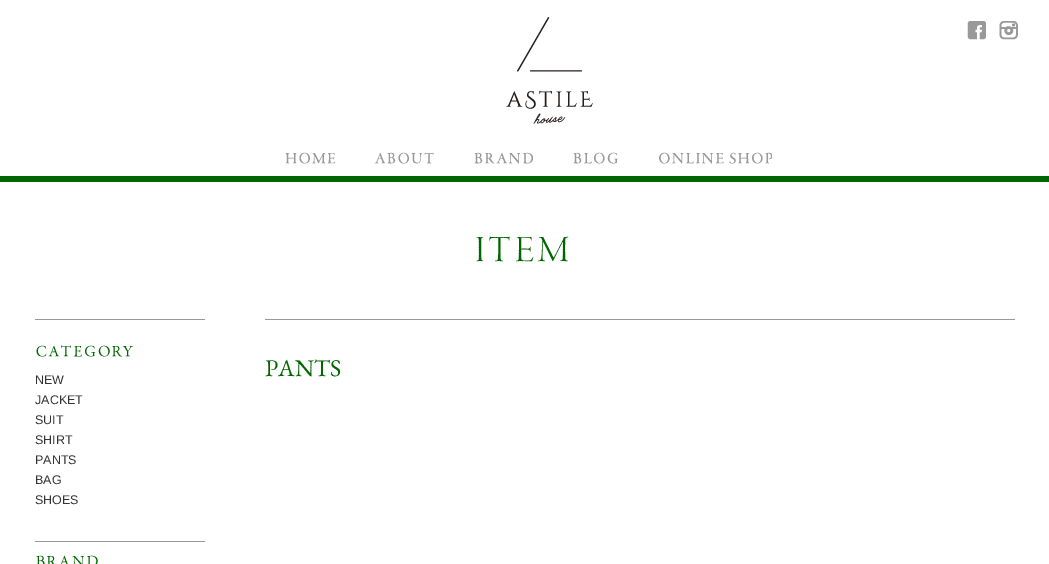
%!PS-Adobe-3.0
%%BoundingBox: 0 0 1049 564
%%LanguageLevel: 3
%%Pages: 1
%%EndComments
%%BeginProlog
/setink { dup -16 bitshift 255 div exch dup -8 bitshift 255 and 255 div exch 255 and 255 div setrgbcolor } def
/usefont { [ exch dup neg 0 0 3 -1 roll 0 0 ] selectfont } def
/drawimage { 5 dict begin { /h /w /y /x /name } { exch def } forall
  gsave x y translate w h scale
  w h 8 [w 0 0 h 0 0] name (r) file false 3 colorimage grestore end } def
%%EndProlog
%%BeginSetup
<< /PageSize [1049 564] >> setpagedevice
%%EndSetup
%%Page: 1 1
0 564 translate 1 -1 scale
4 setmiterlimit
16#FFFFFF setink
0 0 1049 564 rectfill
16#006600 setink
0 176 1049 6 rectfill
(img1.raw) 506 17 87 107 drawimage
(img2.raw) 967 21 19 19 drawimage
(img3.raw) 999 21 19 19 drawimage
(img4.raw) 285 152 51 12 drawimage
(img5.raw) 374 152 60 12 drawimage
(img6.raw) 474 152 59 12 drawimage
(img7.raw) 573 152 45 12 drawimage
(img8.raw) 659 152 113 12 drawimage
/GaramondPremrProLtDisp-Light 38 usefont
475 261 moveto 4 0 (ITEM) ashow
16#999999 setink
265 319 750 1 rectfill
/EBGaramond-Regular 24 usefont
16#006600 setink
265 376 moveto (PANTS) show
16#999999 setink
35 319 170 1 rectfill
(img9.raw) 36 345 97 12 drawimage
/LiberationSans-Regular 12.5 usefont
16#333333 setink
[
    [(NEW) 35 384]
    [(JACKET) 35 404]
    [(SUIT) 35 424]
    [(SHIRT) 35 444]
    [(PANTS) 35 464]
    [(BAG) 35 484]
    [(SHOES) 35 504]
] { aload pop moveto show } forall
16#999999 setink
35 541 170 1 rectfill
(img10.raw) 36 555 62 9 drawimage
showpage
%%EOF
